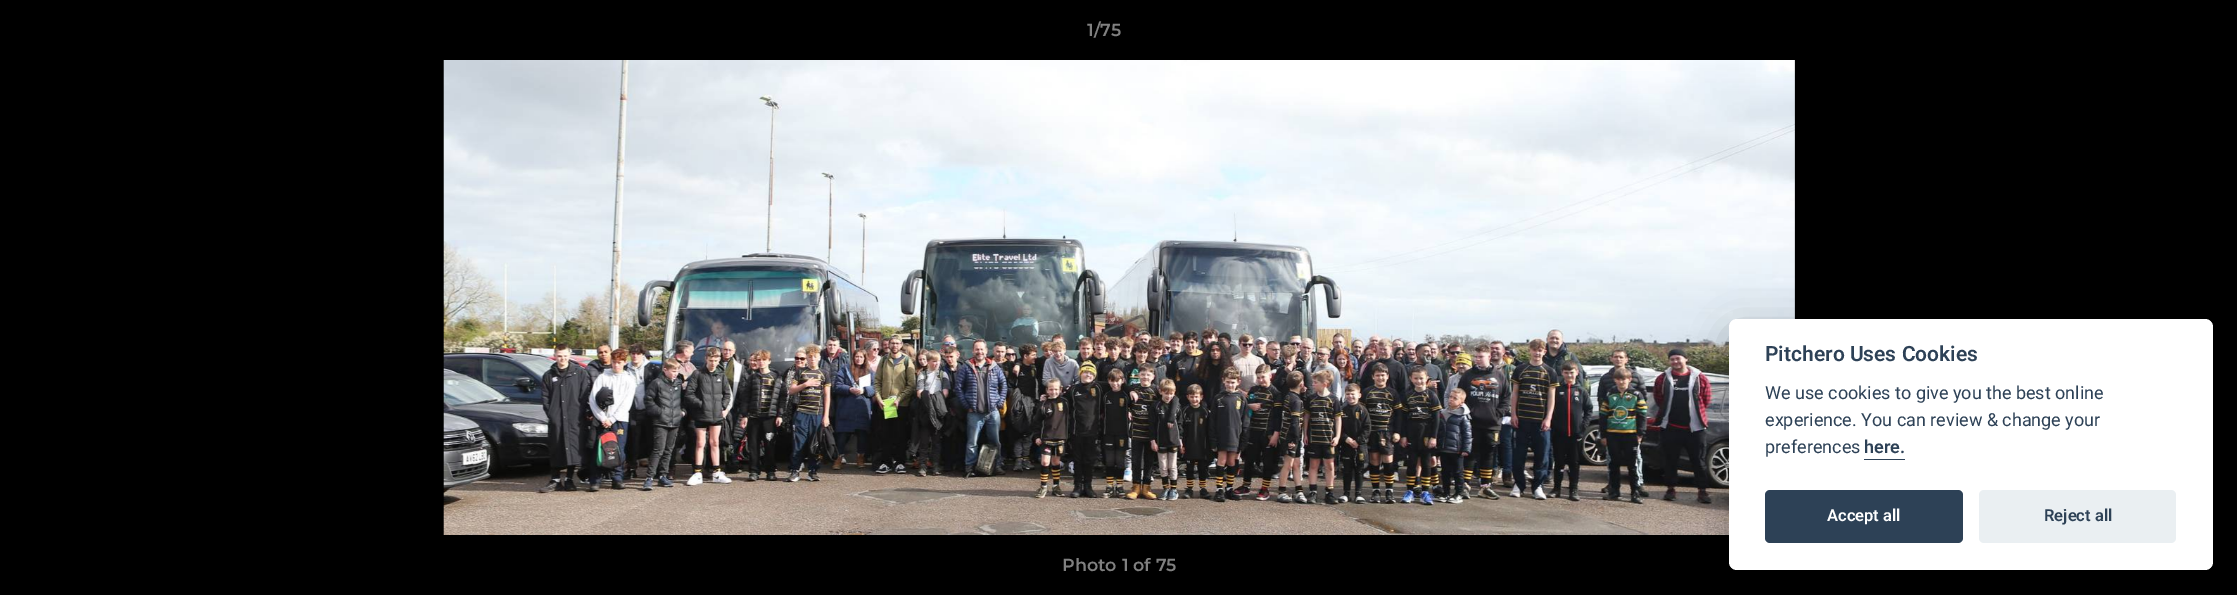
%!PS-Adobe-3.0
%%BoundingBox: 0 0 2237 595
%%LanguageLevel: 3
%%Pages: 1
%%EndComments
%%BeginProlog
/setink { dup -16 bitshift 255 div exch dup -8 bitshift 255 and 255 div exch 255 and 255 div setrgbcolor } def
/usefont { [ exch dup neg 0 0 3 -1 roll 0 0 ] selectfont } def
/setalpha { dup .setfillconstantalpha .setstrokeconstantalpha } def
/rrect { 5 dict begin { /r /h /w /y /x } { exch def } forall
  x r add y moveto x w add y 2 copy h add r arct x w add y h add x 1 index r arct
  x y h add x y r arct x y 2 copy exch w add exch r arct closepath end } def
/softshadow { 12 dict begin { /a /b /q /h /w /y /x } { exch def } forall gsave /was 0 def
  9 -2 -9 { dup b mul 4 div /e exch def 1 sub .425 mul 2.718 exch exp 1 add a .99 .min exch div /now exch def
    1 1 now sub 1 was sub div sub setalpha /was now def
    w h .min e 2 mul add 0 gt { x e sub y e sub w e 2 mul add h e 2 mul add
      q e add b .6 mul add w h .min 2 div e add .min 0 .max rrect fill } if } for grestore end } def
/drawimage { 5 dict begin { /h /w /y /x /name } { exch def } forall
  gsave x y translate w h scale
  w h 8 [w 0 0 h 0 0] name (r) file false 3 colorimage grestore end } def
%%EndProlog
%%BeginSetup
<< /PageSize [2237 595] /PageUsesTransparency true >> setpagedevice
%%EndSetup
%%Page: 1 1
0 .pushpdf14devicefilter
0 595 translate 1 -1 scale
4 setmiterlimit
16#000000 setink
0 0 2237 595 rectfill
/Montserrat-SemiBold 17.5 usefont
16#808080 setink
1087 36 moveto (1/75) show
(img1.raw) 443 60 1352 475 drawimage
1062 571 moveto (Photo 1 of 75) show
16#020203 setink
1729 331 484 252 8 19 0.28 softshadow
16#FFFFFF setink
1729 319 484 251 8 rrect fill
/Roboto-SemiBold 21 usefont
16#2D4156 setink
1765 361 moveto (Pitchero Uses Cookies) show
/Roboto-Regular 18 usefont
[
    [(We use cookies to give you the best online) 1765 399]
    [(experience. You can review & change your) 1765 426]
    [(preferences) 1765 453]
] { aload pop moveto show } forall
/Roboto-SemiBold 18 usefont
1864 453 moveto (here.) show
1864 459 41 1 rectfill
1765 490 198 53 5 rrect fill
/Roboto-SemiBold 16.5 usefont
16#FFFFFF setink
1827 521 moveto (Accept all) show
16#EAEFF2 setink
1979 490 197 53 5 rrect fill
16#2D4156 setink
2044 521 moveto (Reject all) show
.poppdf14devicefilter showpage
%%EOF
